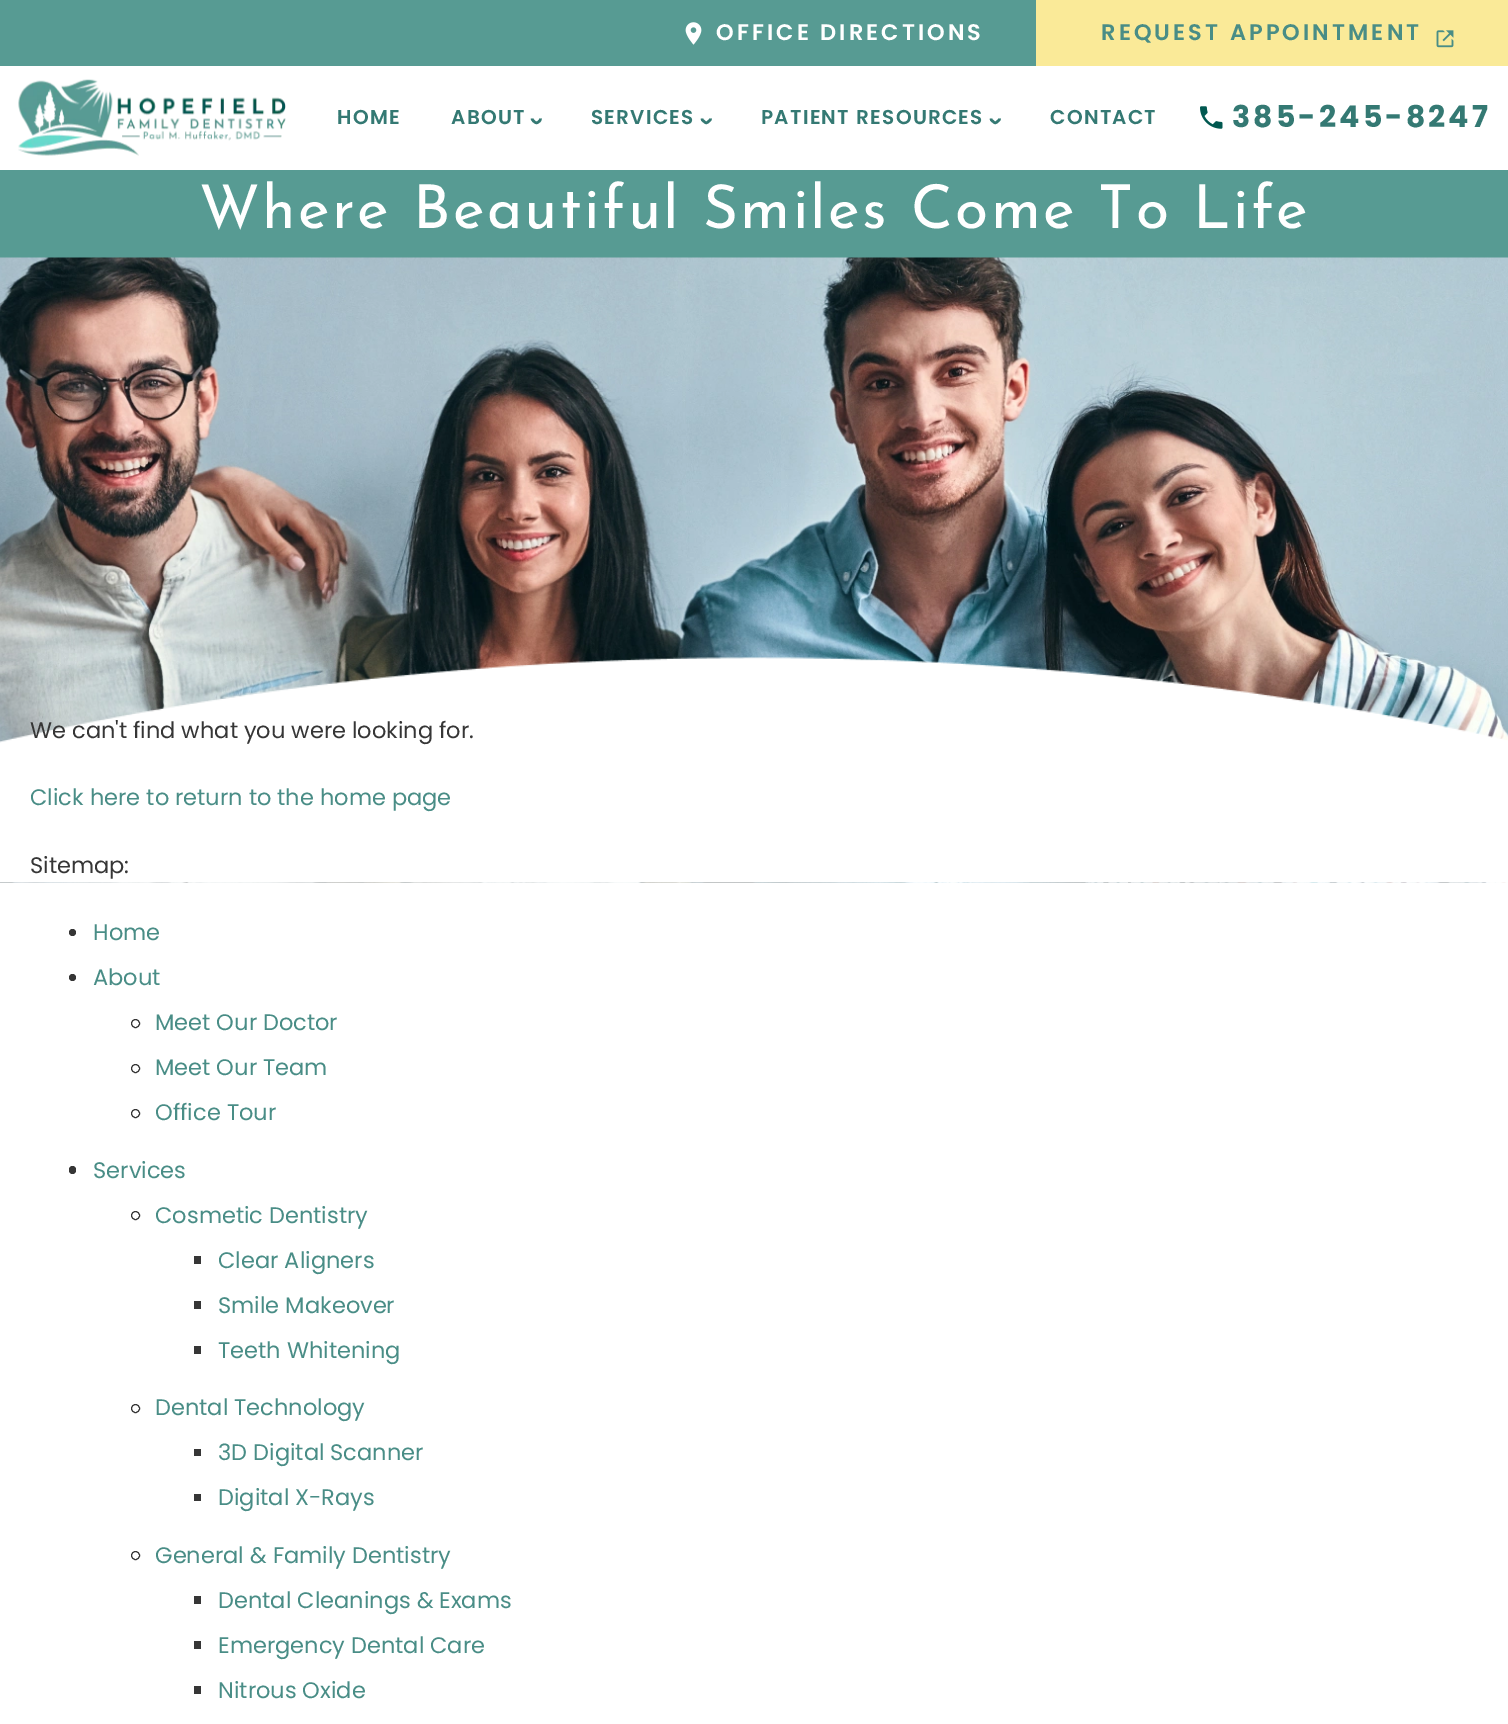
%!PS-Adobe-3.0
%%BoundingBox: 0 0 1508 1724
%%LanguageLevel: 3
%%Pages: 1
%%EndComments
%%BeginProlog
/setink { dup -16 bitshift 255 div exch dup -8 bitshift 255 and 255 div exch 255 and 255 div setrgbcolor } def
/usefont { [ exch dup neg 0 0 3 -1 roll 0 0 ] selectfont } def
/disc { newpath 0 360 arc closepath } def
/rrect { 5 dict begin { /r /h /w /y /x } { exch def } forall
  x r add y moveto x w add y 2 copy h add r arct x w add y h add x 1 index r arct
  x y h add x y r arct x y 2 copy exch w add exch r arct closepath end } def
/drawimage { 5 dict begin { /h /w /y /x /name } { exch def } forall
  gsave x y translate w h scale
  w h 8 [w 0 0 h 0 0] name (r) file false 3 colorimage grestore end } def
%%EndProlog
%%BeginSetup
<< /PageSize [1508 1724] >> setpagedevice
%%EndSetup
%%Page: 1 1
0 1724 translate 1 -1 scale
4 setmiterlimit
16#FFFFFF setink
0 0 1508 1724 rectfill
16#579B93 setink
0 0 1036 66 rectfill
(img1.raw) 685 22 17 23 drawimage
/Poppins-SemiBold 22.5 usefont
16#FFFFFF setink
716 40 moveto 3.1 0 (OFFICE DIRECTIONS) ashow
16#FAEA98 setink
1036 0 472 66 rectfill
16#498D86 setink
1101 40 moveto 3.1 0 (REQUEST APPOINTMENT) ashow
(img2.raw) 1436 30 18 18 drawimage
(img3.raw) 18 79 268 77 drawimage
/Poppins-SemiBold 20 usefont
16#347973 setink
337 124 moveto 1.25 0 (HOME) ashow
451 124 moveto 1.25 0 (ABOUT) ashow
2.5 setlinewidth
540.5 118.5 moveto 540.5 119.5 540 120.5 539.5 121 curveto 537 123.5 536 123.5 533.5 121 curveto 533 120.5 532 119.5 532 118.5 curveto stroke
591 124 moveto 1.25 0 (SERVICES) ashow
710.5 118.5 moveto 710.5 119.5 710 120.5 709 121 curveto 706.5 123.5 706 123.5 703.5 121 curveto 702.5 120.5 702 119.5 702 118.5 curveto stroke
761 124 moveto 1.25 0 (PATIENT RESOURCES) ashow
999.5 118.5 moveto 999.5 119.5 999 120.5 998 121 curveto 995.5 123.5 995 123.5 992.5 121 curveto 991.5 120.5 991 119.5 991 118.5 curveto stroke
1050 124 moveto 1.25 0 (CONTACT) ashow
(img4.raw) 1200 106 23 23 drawimage
/Poppins-Bold 30 usefont
1232 127 moveto 3.1 0 (385-245-8247) ashow
16#579B93 setink
0 170 1508 88 rectfill
/JosefinSans-Regular 60.4 usefont
16#FFFFFF setink
199 228 moveto 2.5 0 (Where Beautiful Smiles Come To Life) ashow
(img5.raw) 0 257 1508 626 drawimage
(img6.raw) 0 657 1508 226 drawimage
/Poppins-Regular 22.5 usefont
16#363636 setink
30 738 moveto (We can't find what you were looking for.) show
16#498D86 setink
30 805 moveto (Click here to return to the home page) show
16#363636 setink
30 873 moveto (Sitemap:) show
72.5 932.5 3.5 disc fill
16#498D86 setink
93 940 moveto (Home) show
16#363636 setink
72.5 977.5 3.5 disc fill
16#498D86 setink
93 985 moveto (About) show
16#363636 setink
1 setlinewidth
135.5 1023.5 4 disc stroke
16#498D86 setink
155 1030 moveto (Meet Our Doctor) show
16#363636 setink
135.5 1068.5 4 disc stroke
16#498D86 setink
155 1075 moveto (Meet Our Team) show
16#363636 setink
135.5 1113.5 4 disc stroke
16#498D86 setink
155 1120 moveto (Office Tour) show
16#363636 setink
69 1166 7 8 3.5 rrect fill
16#498D86 setink
93 1178 moveto (Services) show
16#363636 setink
135.5 1215.5 4 disc stroke
16#498D86 setink
155 1223 moveto (Cosmetic Dentistry) show
16#363636 setink
194 1256 7 8 rectfill
16#498D86 setink
218 1268 moveto (Clear Aligners) show
16#363636 setink
194 1301 7 8 rectfill
16#498D86 setink
218 1313 moveto (Smile Makeover) show
16#363636 setink
194 1346 7 8 rectfill
16#498D86 setink
218 1358 moveto (Teeth Whitening) show
16#363636 setink
135.5 1408.5 4 disc stroke
16#498D86 setink
155 1415 moveto (Dental Technology) show
16#363636 setink
194 1449 7 7 rectfill
16#498D86 setink
218 1460 moveto (3D Digital Scanner) show
16#363636 setink
194 1494 7 7 rectfill
16#498D86 setink
218 1505 moveto (Digital X-Rays) show
16#363636 setink
135.5 1555.5 4 disc stroke
16#498D86 setink
155 1563 moveto (General & Family Dentistry) show
16#363636 setink
194 1596 7 8 rectfill
16#498D86 setink
218 1608 moveto (Dental Cleanings & Exams) show
16#363636 setink
194 1641 7 8 rectfill
16#498D86 setink
218 1653 moveto (Emergency Dental Care) show
16#363636 setink
194 1686 7 8 rectfill
16#498D86 setink
218 1698 moveto (Nitrous Oxide) show
showpage
%%EOF
